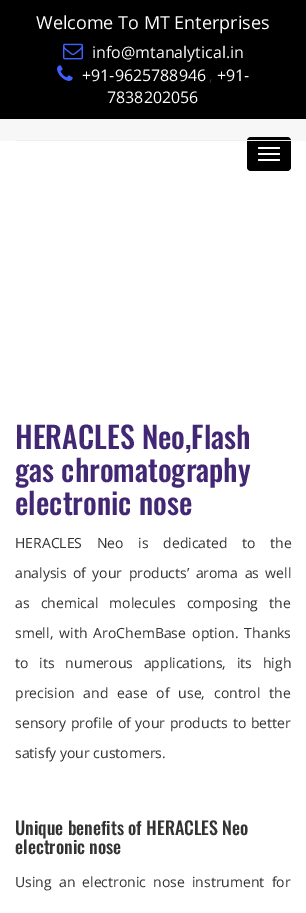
%!PS-Adobe-3.0
%%BoundingBox: 0 0 306 913
%%LanguageLevel: 3
%%Pages: 1
%%EndComments
%%BeginProlog
/setink { dup -16 bitshift 255 div exch dup -8 bitshift 255 and 255 div exch 255 and 255 div setrgbcolor } def
/usefont { [ exch dup neg 0 0 3 -1 roll 0 0 ] selectfont } def
/rrect { 5 dict begin { /r /h /w /y /x } { exch def } forall
  x r add y moveto x w add y 2 copy h add r arct x w add y h add x 1 index r arct
  x y h add x y r arct x y 2 copy exch w add exch r arct closepath end } def
/drawimage { 5 dict begin { /h /w /y /x /name } { exch def } forall
  gsave x y translate w h scale
  w h 8 [w 0 0 h 0 0] name (r) file false 3 colorimage grestore end } def
%%EndProlog
%%BeginSetup
<< /PageSize [306 913] >> setpagedevice
%%EndSetup
%%Page: 1 1
0 913 translate 1 -1 scale
4 setmiterlimit
16#FFFFFF setink
0 0 306 913 rectfill
16#000000 setink
0 0 306 119 rectfill
/OpenSans-Regular 18 usefont
16#FFFFFF setink
36 29 moveto (Welcome To MT Enterprises) show
(img1.raw) 63 43 20 17 drawimage
/OpenSans-Regular 16 usefont
92 58 moveto (info@mtanalytical.in) show
(img2.raw) 57 65 16 16 drawimage
82 81 moveto (+91-9625788946) show
/OpenSans-Regular 14 usefont
16#333333 setink
209 81 moveto (,) show
/OpenSans-Regular 16 usefont
16#FFFFFF setink
217 81 moveto (+91-) show
107 103 moveto (7838202056) show
16#F7F7F7 setink
0 119 306 22 rectfill
16#000000 setink
247 137 44 34 4 rrect fill
16#FFFFFF setink
258 147 22 2 1 rrect fill
258 153 22 2 1 rrect fill
258 159 22 2 1 rrect fill
16#EEEEEE setink
15 140 276 1 rectfill
/Oswald-Medium 30 usefont
16#422774 setink
[
    [(HERACLES Neo,Flash) 15 449]
    [(gas chromatography) 15 482]
    [(electronic nose) 15 515]
] { aload pop moveto show } forall
/OpenSans-Regular 14 usefont
16#333333 setink
15 548 moveto 11 0 32 (HERACLES Neo is dedicated to the) widthshow
15 578 moveto 2.75 0 32 (analysis of your products’ aroma as well) widthshow
15 608 moveto 7.5 0 32 (as chemical molecules composing the) widthshow
15 638 moveto 2.5 0 32 (smell, with AroChemBase option. Thanks) widthshow
15 668 moveto 7.25 0 32 (to its numerous applications, its high) widthshow
15 698 moveto 5.25 0 32 (precision and ease of use, control the) widthshow
15 728 moveto 1 0 32 (sensory profile of your products to better) widthshow
15 758 moveto (satisfy your customers.) show
/Oswald-Medium 18 usefont
15 835 moveto (Unique benefits of HERACLES Neo) show
15 854 moveto (electronic nose) show
/OpenSans-Regular 14 usefont
15 887 moveto 3.5 0 32 (Using an electronic nose instrument for) widthshow
showpage
%%EOF
